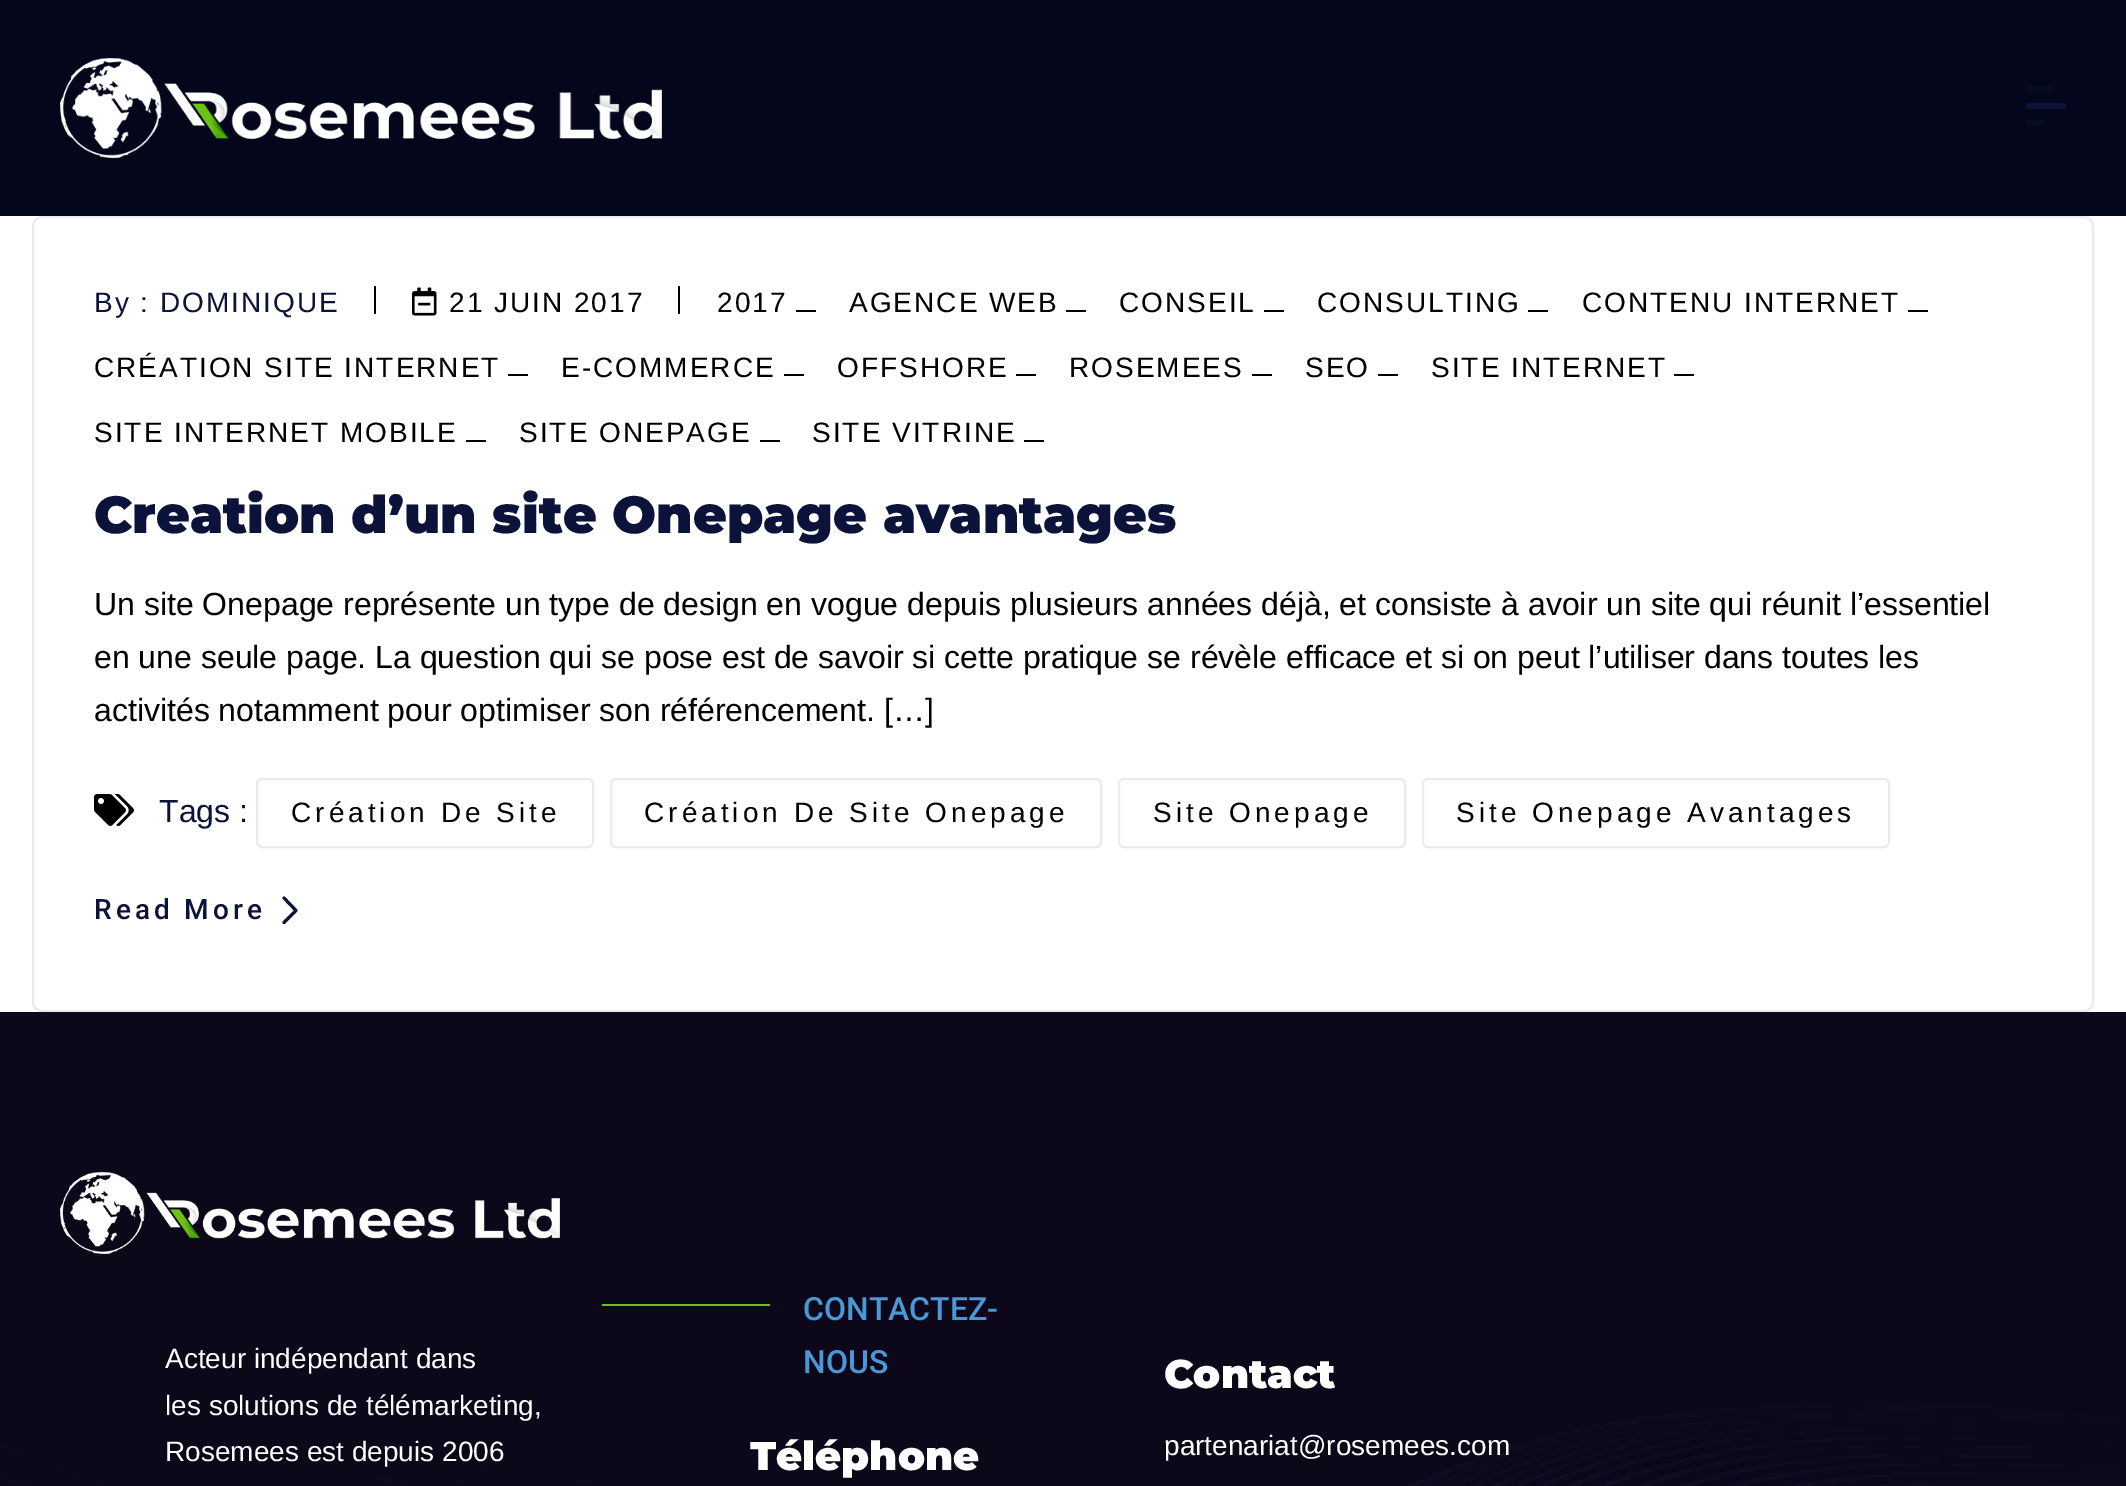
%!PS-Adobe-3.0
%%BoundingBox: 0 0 2126 1486
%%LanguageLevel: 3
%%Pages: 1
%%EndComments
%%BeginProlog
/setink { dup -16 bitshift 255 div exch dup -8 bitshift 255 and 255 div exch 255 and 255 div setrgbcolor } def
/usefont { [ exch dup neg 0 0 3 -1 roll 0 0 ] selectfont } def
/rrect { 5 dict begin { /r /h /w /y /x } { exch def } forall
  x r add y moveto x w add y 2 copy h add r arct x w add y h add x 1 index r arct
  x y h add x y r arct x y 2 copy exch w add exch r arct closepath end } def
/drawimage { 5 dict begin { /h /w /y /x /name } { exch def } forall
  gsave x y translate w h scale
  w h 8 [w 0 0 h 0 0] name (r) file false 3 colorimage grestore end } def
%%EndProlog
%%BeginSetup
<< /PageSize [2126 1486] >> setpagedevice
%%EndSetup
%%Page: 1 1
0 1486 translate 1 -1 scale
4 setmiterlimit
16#FFFFFF setink
0 0 2126 1486 rectfill
16#04071C setink
0 0 2126 216 rectfill
(img1.raw) 60 58 602 100 drawimage
16#080C1F setink
2031.5 86 moveto 2048.5 86 lineto 2051.5 86 2054 86.5 2054 87 curveto 2054 91 lineto 2054 91.5 2051.5 92 2048.5 92 curveto 2031.5 92 lineto 2028.5 92 2026 91.5 2026 91 curveto 2026 87 lineto 2026 86.5 2028.5 86 2031.5 86 curveto closepath fill
16#0C133B setink
2034 103 moveto 2058 103 lineto 2062 103 2066 104 2066 104 curveto 2066 108 lineto 2066 108 2062 109 2058 109 curveto 2034 109 lineto 2030 109 2026 108 2026 108 curveto 2026 104 lineto 2026 104 2030 103 2034 103 curveto closepath fill
16#080C1F setink
2030 120 moveto 2032 120 2045 119.5 2046 121 curveto 2046 125 lineto 2045 126.5 2028.5 126.5 2026.5 125.5 curveto 2026 125 2026 124.5 2026 124 curveto 2026 120.5 2026 120 2030 120 curveto closepath fill
16#EBEBEB setink
2 setlinewidth
33 217 2060 794 9 rrect stroke
/LiberationSans-Regular 28 usefont
16#0C133B setink
94 312 moveto 2 0 (By : DOMINIQUE) ashow
16#000000 setink
374 286 2 28 rectfill
(img2.raw) 412 287 25 29 drawimage
449 312 moveto 2 0 (21 JUIN 2017) ashow
678 286 2 28 rectfill
717 312 moveto 2 0 (2017) ashow
796 310 20 2 rectfill
849 312 moveto 2 0 (AGENCE WEB) ashow
1066 310 20 2 rectfill
1119 312 moveto 2 0 (CONSEIL) ashow
1264 310 20 2 rectfill
1317 312 moveto 2 0 (CONSULTING) ashow
1528 310 20 2 rectfill
1582 312 moveto 2 0 (CONTENU INTERNET) ashow
1908 310 20 2 rectfill
94 377 moveto 2 0 (CRÉATION SITE INTERNET) ashow
508 374 20 2 rectfill
561 377 moveto 2 0 (E-COMMERCE) ashow
784 374 20 2 rectfill
837 377 moveto 2 0 (OFFSHORE) ashow
1016 374 20 2 rectfill
1069 377 moveto 2 0 (ROSEMEES) ashow
1252 374 20 2 rectfill
1305 377 moveto 2 0 (SEO) ashow
1378 374 20 2 rectfill
1431 377 moveto 2 0 (SITE INTERNET) ashow
1674 374 20 2 rectfill
94 442 moveto 2 0 (SITE INTERNET MOBILE) ashow
466 440 20 2 rectfill
519 442 moveto 2 0 (SITE ONEPAGE) ashow
760 440 20 2 rectfill
812 442 moveto 2 0 (SITE VITRINE) ashow
1024 440 20 2 rectfill
/Montserrat-Thin 52 usefont
16#0C133B setink
94 533 moveto (Creation d’un site Onepage avantages) show
/LiberationSans-Regular 32 usefont
16#000000 setink
[
    [(Un site Onepage représente un type de design en vogue depuis plusieurs années déjà, et consiste à avoir un site qui réunit l’essentiel) 94 615]
    [(en une seule page. La question qui se pose est de savoir si cette pratique se révèle efficace et si on peut l’utiliser dans toutes les) 94 668]
    [(activités notamment pour optimiser son référencement. […]) 94 721]
] { aload pop moveto show } forall
(img3.raw) 94 794 40 32 drawimage
16#0C133B setink
159 822 moveto (Tags :) show
16#EBEBEB setink
257 779 336 68 5 rrect stroke
/LiberationSans-Regular 28 usefont
16#000000 setink
291 822 moveto 4 0 (Création De Site) ashow
16#EBEBEB setink
611 779 490 68 5 rrect stroke
16#000000 setink
644 822 moveto 4 0 (Création De Site Onepage) ashow
16#EBEBEB setink
1119 779 286 68 5 rrect stroke
16#000000 setink
1153 822 moveto 4 0 (Site Onepage) ashow
16#EBEBEB setink
1423 779 466 68 5 rrect stroke
16#000000 setink
1456 822 moveto 4 0 (Site Onepage Avantages) ashow
/Roboto-Medium 28 usefont
16#0C133B setink
94 919 moveto 4 0 (Read More) ashow
3 setlinewidth
1 setlinecap
1 setlinejoin
284 898 moveto 296 910.5 lineto 284 922.5 lineto stroke
(img4.raw) 0 1012 2126 474 drawimage
(img5.raw) 60 1172 500 82 drawimage
/LiberationSans-Regular 28 usefont
16#FFFFFF setink
[
    [(Acteur indépendant dans) 165 1368]
    [(les solutions de télémarketing,) 165 1415]
    [(Rosemees est depuis 2006) 165 1461]
] { aload pop moveto show } forall
16#6EC212 setink
602 1304 168 2 rectfill
/Roboto-Medium 32 usefont
16#4B98D8 setink
803 1320 moveto (CONTACTEZ-) show
803 1373 moveto (NOUS) show
/Montserrat-Thin 40 usefont
16#FFFFFF setink
750 1470 moveto (Téléphone) show
1164 1388 moveto (Contact) show
/LiberationSans-Regular 28 usefont
1164 1455 moveto (partenariat@rosemees.com) show
showpage
%%EOF
